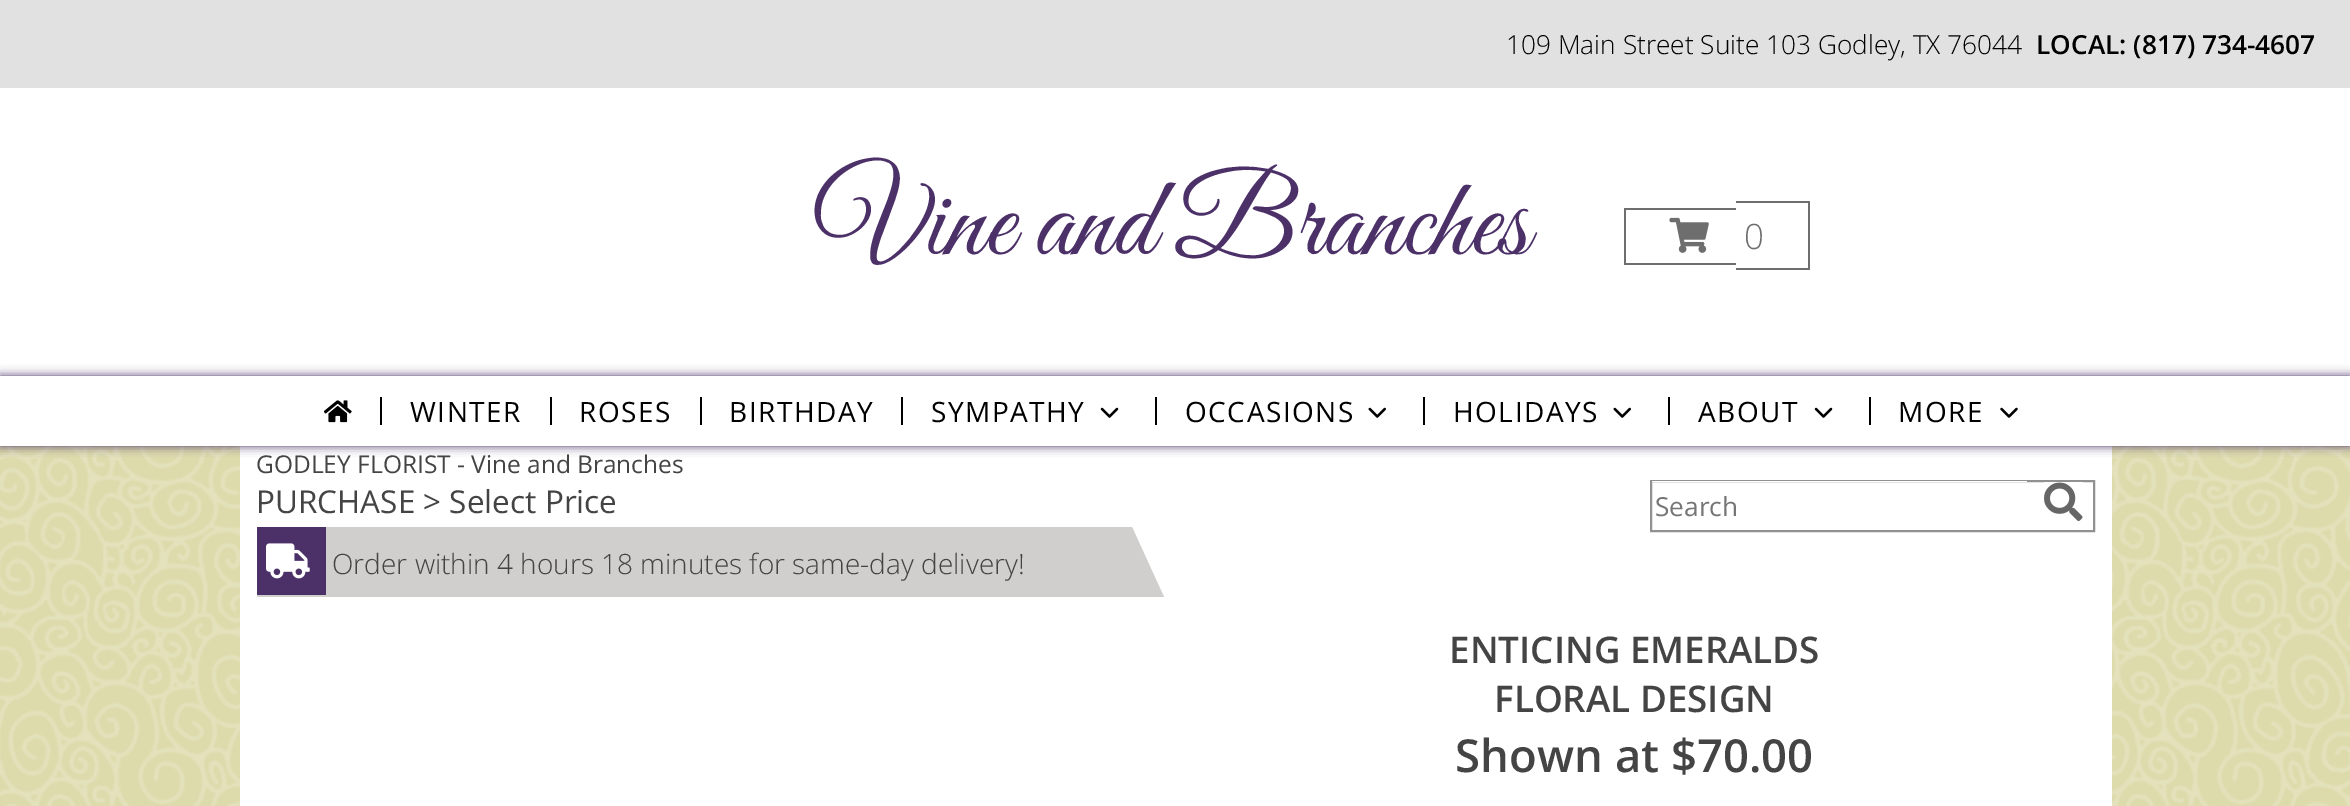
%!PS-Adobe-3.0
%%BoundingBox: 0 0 2350 806
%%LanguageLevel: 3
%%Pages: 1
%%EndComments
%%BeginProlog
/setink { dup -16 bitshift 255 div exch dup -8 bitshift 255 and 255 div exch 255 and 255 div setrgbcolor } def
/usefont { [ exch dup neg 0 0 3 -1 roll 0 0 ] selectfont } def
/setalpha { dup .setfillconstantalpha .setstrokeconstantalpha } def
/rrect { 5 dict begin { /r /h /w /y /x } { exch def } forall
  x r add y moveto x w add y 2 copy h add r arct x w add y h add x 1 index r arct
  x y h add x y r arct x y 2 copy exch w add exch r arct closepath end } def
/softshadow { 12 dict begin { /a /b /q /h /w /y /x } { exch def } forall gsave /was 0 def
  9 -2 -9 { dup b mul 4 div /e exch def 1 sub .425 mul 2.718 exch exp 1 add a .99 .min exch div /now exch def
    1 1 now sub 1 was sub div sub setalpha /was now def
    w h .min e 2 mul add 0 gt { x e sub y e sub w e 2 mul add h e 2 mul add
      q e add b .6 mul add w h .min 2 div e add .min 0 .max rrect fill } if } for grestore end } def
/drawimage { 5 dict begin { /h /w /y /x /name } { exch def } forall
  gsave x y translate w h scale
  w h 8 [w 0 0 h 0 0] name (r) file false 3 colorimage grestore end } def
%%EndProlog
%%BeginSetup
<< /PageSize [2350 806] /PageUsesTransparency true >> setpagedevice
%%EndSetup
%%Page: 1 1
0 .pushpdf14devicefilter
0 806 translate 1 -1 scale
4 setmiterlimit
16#DDDBAC setink
0 0 2350 806 rectfill
(img1.raw) 0 446 2350 360 drawimage
16#FFFFFF setink
240 446 1872 360 rectfill
16#E1E1E1 setink
0 0 2350 88 rectfill
/OpenSans-Light 26.25 usefont
16#000000 setink
1506 54 moveto (109 Main Street Suite 103 Godley, TX 76044) show
/OpenSans-SemiBold 26.25 usefont
2036 54 moveto (LOCAL: \(817\) 734-4607) show
16#FFFFFF setink
0 88 2350 288 rectfill
/GreatVibes-Regular 113.75 usefont
16#4C3068 setink
815 254 moveto (Vine and Branches) show
[
    [1624 208 112 2 16#6E6E6E]
    [1624 263 112 2 16#6E6E6E]
    [1624 208 2 56 16#6E6E6E]
    [1736 201 74 2 16#6E6E6E]
    [1736 268 9 2 16#6E6E6E]
    [1808 201 2 69 16#6E6E6E]
    [1745 268 65 2 16#6E6E6E]
] { aload pop setink rectfill } forall
(img2.raw) 1669 217 40 36 drawimage
/OpenSans-Light 35 usefont
1744 249 moveto (0) show
16#4C3068 setink
0 376 2350 70 0 5 1 softshadow
16#FFFFFF setink
0 376 2350 70 rectfill
(img3.raw) 324 400 28 23 drawimage
16#000000 setink
380 397 2 28 rectfill
/OpenSans-Regular 28 usefont
410 422 moveto 1.5 0 (WINTER) ashow
550 397 2 28 rectfill
579 422 moveto 1.5 0 (ROSES) ashow
700 397 2 28 rectfill
729 422 moveto 1.5 0 (BIRTHDAY) ashow
901 397 2 28 rectfill
931 422 moveto 1.5 0 (SYMPATHY) ashow
(img4.raw) 1100 407 19 11 drawimage
1155 397 2 28 rectfill
1185 422 moveto 1.5 0 (OCCASIONS) ashow
(img5.raw) 1368 407 18 11 drawimage
1423 397 2 28 rectfill
1453 422 moveto 1.5 0 (HOLIDAYS) ashow
(img5.raw) 1613 407 18 11 drawimage
1668 397 2 28 rectfill
1698 422 moveto 1.5 0 (ABOUT) ashow
(img4.raw) 1814 407 19 11 drawimage
1869 397 2 28 rectfill
1898 422 moveto 1.5 0 (MORE) ashow
(img6.raw) 2000 407 18 11 drawimage
/OpenSans-Regular 24.5 usefont
16#444444 setink
256 473 moveto (GODLEY FLORIST - Vine and Branches) show
/OpenSans-Regular 31.5 usefont
256 513 moveto (PURCHASE > Select Price) show
16#919191 setink
2 setlinewidth
1651 481 443 50 rectstroke
16#FFFFFF setink
1652 481 375 1 rectfill
/OpenSans-Regular 26.25 usefont
16#757575 setink
1655 516 moveto (Search) show
(img7.raw) 2044 482 39 39 drawimage
16#D0CFCD setink
1164 597 moveto 257 597 lineto 257 527 lineto 1132 527 lineto closepath fill
16#4C3068 setink
257 527 69 68 rectfill
(img8.raw) 266 543 44 36 drawimage
/OpenSans-Light 28 usefont
16#444444 setink
332 574 moveto (Order within 4 hours 18 minutes for same-day delivery!) show
/OpenSans-SemiBold 36.75 usefont
1449 663 moveto (ENTICING EMERALDS) show
1494 712 moveto (FLORAL DESIGN) show
/OpenSans-SemiBold 45.5 usefont
1455 772 moveto (Shown at $70.00) show
.poppdf14devicefilter showpage
%%EOF
